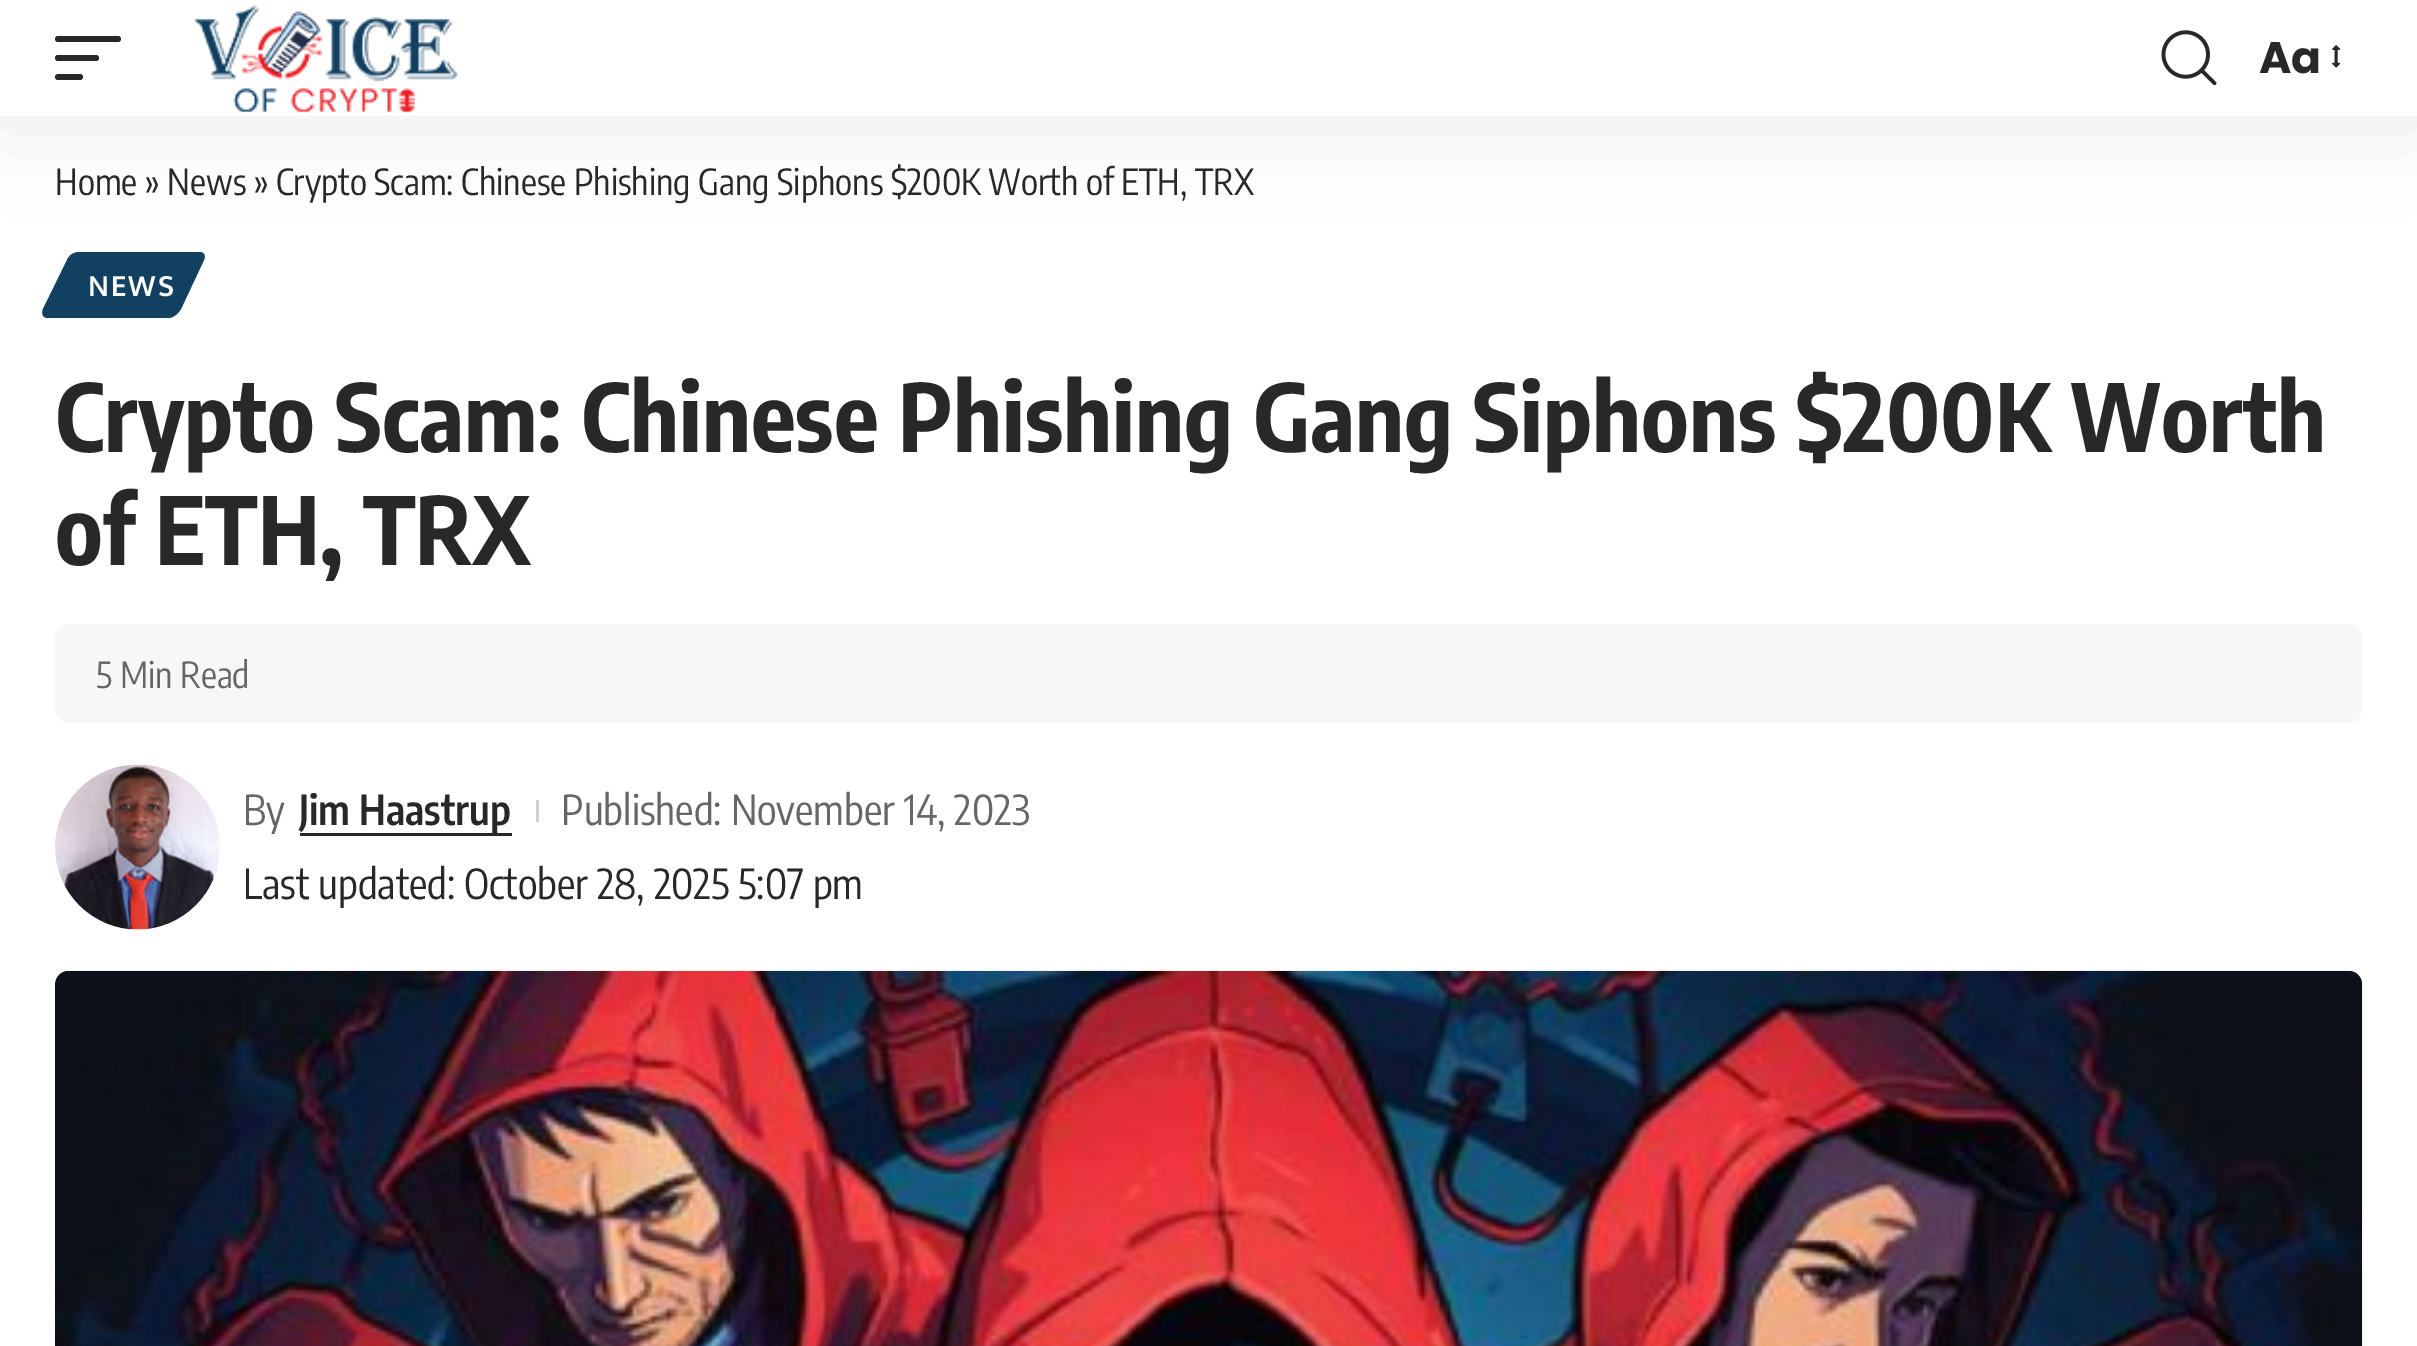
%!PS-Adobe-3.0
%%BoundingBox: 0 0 2417 1346
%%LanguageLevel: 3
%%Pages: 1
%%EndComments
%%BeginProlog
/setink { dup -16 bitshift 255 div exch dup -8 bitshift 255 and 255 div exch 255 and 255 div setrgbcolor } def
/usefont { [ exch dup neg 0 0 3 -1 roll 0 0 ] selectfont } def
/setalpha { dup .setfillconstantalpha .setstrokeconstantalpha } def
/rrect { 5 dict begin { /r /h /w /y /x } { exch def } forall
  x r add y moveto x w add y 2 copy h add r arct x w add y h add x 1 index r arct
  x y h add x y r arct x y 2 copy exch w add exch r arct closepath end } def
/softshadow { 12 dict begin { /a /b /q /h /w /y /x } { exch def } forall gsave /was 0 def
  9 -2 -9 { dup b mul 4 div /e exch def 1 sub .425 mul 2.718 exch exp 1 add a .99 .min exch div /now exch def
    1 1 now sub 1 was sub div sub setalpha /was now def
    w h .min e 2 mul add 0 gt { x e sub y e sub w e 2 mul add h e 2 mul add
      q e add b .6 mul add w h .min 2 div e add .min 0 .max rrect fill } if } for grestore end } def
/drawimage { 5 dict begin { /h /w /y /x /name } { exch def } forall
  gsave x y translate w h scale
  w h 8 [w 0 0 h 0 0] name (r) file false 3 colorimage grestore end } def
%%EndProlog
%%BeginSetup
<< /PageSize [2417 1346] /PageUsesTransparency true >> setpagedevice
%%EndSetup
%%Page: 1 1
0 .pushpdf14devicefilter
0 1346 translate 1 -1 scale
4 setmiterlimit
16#FFFFFF setink
0 0 2417 1346 rectfill
16#000000 setink
0 11 2417 116 0 41 0.07 softshadow
16#FFFFFF setink
0 0 2417 116 rectfill
16#282828 setink
55 36 66 6 3 rrect fill
55 55 44 6 3 rrect fill
55 74 28 6 3 rrect fill
(img1.raw) 194 5 264 108 drawimage
(img2.raw) 2161 30 56 56 drawimage
/Poppins-Bold 44 usefont
2259 73 moveto (Aa) show
(img3.raw) 2332 45 9 23 drawimage
/EncodeSansCondensed-Regular 35.75 usefont
55 195 moveto (Home » News » Crypto Scam: Chinese Phishing Gang Siphons $200K Worth of ETH, TRX) show
16#124060 setink
79 252 moveto 199 252 lineto 204 252 206 255 204 260 curveto 181 309 lineto 178 314 173 318 168 318 curveto 48 318 lineto 43 318 41 314 43 309 curveto 67 260 lineto 69 255 74 252 79 252 curveto closepath fill
/Oxygen-Bold 27.5 usefont
16#FFFFFF setink
88 296 moveto 2 0 (NEWS) ashow
/EncodeSansCondensed-Bold 93.5 usefont
16#282828 setink
55 452 moveto (Crypto Scam: Chinese Phishing Gang Siphons $200K Worth) show
55 565 moveto (of ETH, TRX) show
16#F7F7F7 setink
55 624 2307 99 14 rrect fill
/EncodeSansCondensed-Regular 35.75 usefont
16#666666 setink
96 688 moveto (5 Min Read) show
(img4.raw) 55 764 165 166 drawimage
/EncodeSansCondensed-Regular 41.1 usefont
243 825 moveto (By) show
16#282828 setink
300 833 212 3 rectfill
/EncodeSansCondensed-SemiBold 41.1 usefont
299 825 moveto (Jim Haastrup) show
16#D1D1D1 setink
536 800 3 22 rectfill
/EncodeSansCondensed-Regular 41.1 usefont
16#666666 setink
561 825 moveto (Published: November 14, 2023) show
16#282828 setink
243 899 moveto (Last updated: October 28, 2025 5:07 pm) show
(img5.raw) 55 970 2308 376 drawimage
.poppdf14devicefilter showpage
%%EOF
